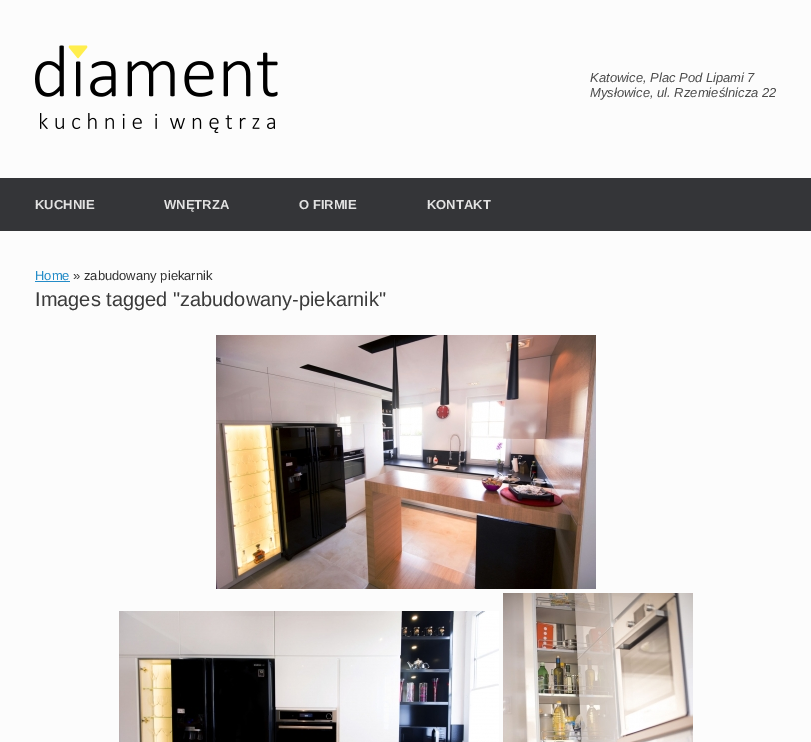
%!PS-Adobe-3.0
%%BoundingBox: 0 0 811 742
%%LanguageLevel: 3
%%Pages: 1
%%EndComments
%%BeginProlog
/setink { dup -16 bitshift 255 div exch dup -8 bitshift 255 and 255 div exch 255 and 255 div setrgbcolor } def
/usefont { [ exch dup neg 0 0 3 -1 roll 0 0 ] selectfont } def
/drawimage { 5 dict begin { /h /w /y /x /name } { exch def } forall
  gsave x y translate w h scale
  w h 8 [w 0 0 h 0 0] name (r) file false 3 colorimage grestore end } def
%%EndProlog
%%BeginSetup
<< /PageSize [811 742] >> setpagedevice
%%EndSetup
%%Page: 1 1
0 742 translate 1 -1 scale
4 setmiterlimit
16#FCFCFC setink
0 0 811 742 rectfill
(img1.raw) 35 45 243 88 drawimage
/LiberationSans-Italic 13 usefont
16#4B4B4B setink
590 82 moveto (Katowice, Plac Pod Lipami 7) show
590 97 moveto (Mysłowice, ul. Rzemieślnicza 22) show
16#343538 setink
0 178 811 53 rectfill
/LiberationSans-Bold 13 usefont
16#E2E2E2 setink
[
    [(KUCHNIE) 35 209]
    [(WNĘTRZA) 164 209]
    [(O FIRMIE) 299 209]
    [(KONTAKT) 427 209]
] { aload pop moveto show } forall
/LiberationSans-Regular 13 usefont
16#248CC8 setink
35 280 moveto (Home) show
35 281 35 1 rectfill
16#333333 setink
73 280 moveto (» zabudowany piekarnik) show
/LiberationSans-Regular 20 usefont
16#3B3B3B setink
35 306 moveto (Images tagged "zabudowany-piekarnik") show
(img2.raw) 216 335 380 254 drawimage
(img3.raw) 119 611 380 131 drawimage
(img4.raw) 503 593 190 149 drawimage
showpage
%%EOF
